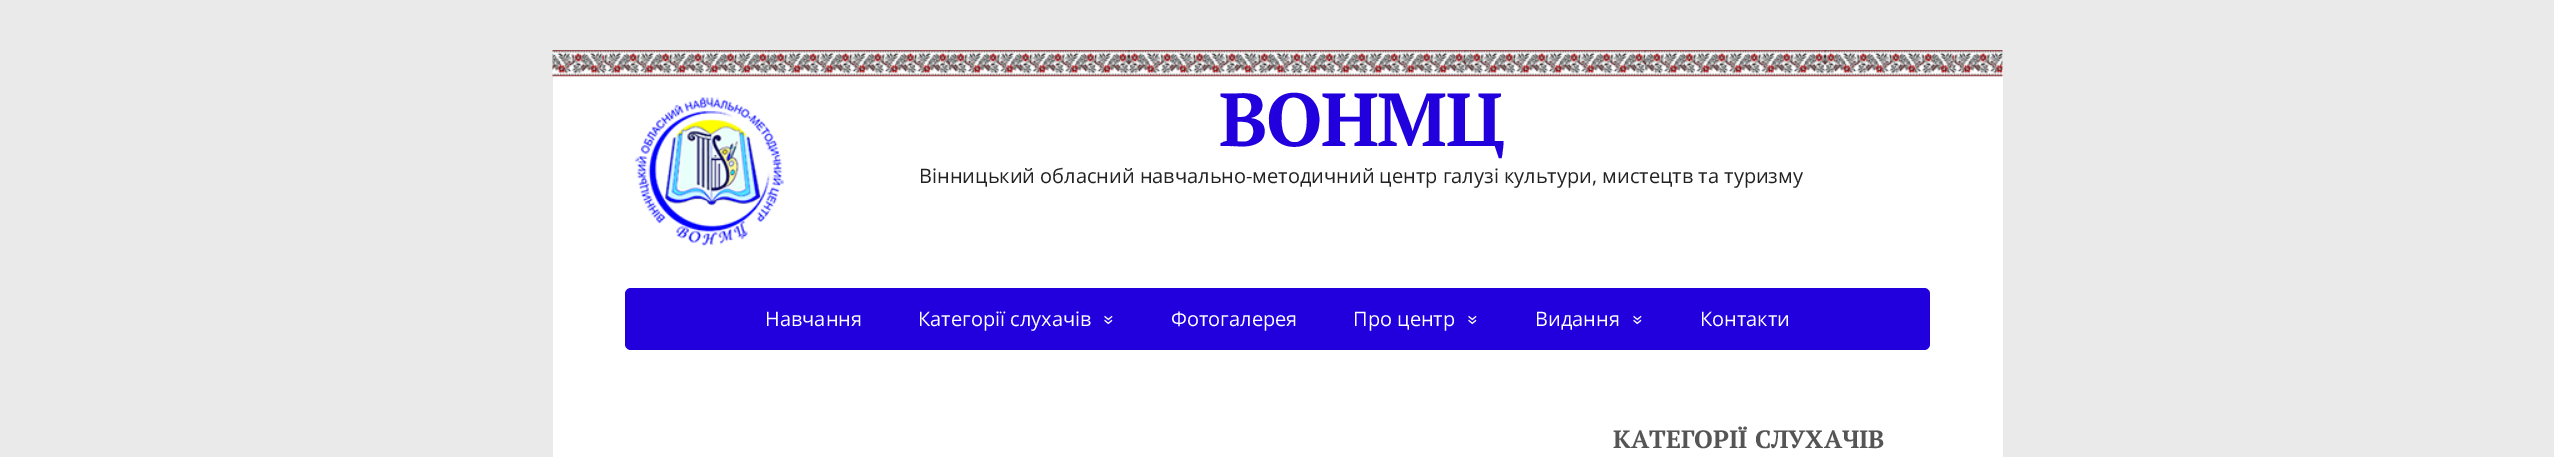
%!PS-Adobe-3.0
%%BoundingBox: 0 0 2554 457
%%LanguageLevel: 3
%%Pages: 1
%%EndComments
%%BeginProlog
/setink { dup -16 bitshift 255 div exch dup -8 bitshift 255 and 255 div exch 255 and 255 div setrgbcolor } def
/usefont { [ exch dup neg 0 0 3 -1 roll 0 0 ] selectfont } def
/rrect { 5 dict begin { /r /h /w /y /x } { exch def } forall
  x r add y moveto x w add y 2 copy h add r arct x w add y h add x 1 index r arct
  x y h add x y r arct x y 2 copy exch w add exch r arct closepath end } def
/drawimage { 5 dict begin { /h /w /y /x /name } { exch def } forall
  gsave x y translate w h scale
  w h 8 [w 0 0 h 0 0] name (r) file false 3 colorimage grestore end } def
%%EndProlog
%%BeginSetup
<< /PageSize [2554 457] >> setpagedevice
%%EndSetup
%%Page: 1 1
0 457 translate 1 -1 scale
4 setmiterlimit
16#EAEAEA setink
0 0 2554 457 rectfill
16#FFFFFF setink
553 50 1450 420 13 rrect fill
(img1.raw) 552 50 1451 27 drawimage
(img2.raw) 635 97 149 149 drawimage
/PTSerif-Bold 75 usefont
16#2100DD setink
1219 146 moveto -1.5 0 (ВОНМЦ) ashow
/OpenSans-Regular 20 usefont
16#222222 setink
919 183 moveto (Вінницький обласний навчально-методичний центр галузі культури, мистецтв та туризму) show
16#2100DD setink
625 288 1305 62 6 rrect fill
16#FFFFFF setink
765 326 moveto (Навчання) show
918 326 moveto (Категорії слухачів) show
gsave 1103 315 translate 90 rotate 0 0 moveto (») show grestore
1171 326 moveto (Фотогалерея) show
1353 326 moveto (Про центр) show
gsave 1467 315 translate 90 rotate 0 0 moveto (») show grestore
1535 326 moveto (Видання) show
gsave 1632 315 translate 90 rotate 0 0 moveto (») show grestore
1700 326 moveto (Контакти) show
/PTSerif-Bold 25 usefont
16#555555 setink
1613 448 moveto (КАТЕГОРІЇ СЛУХАЧІВ) show
showpage
%%EOF
